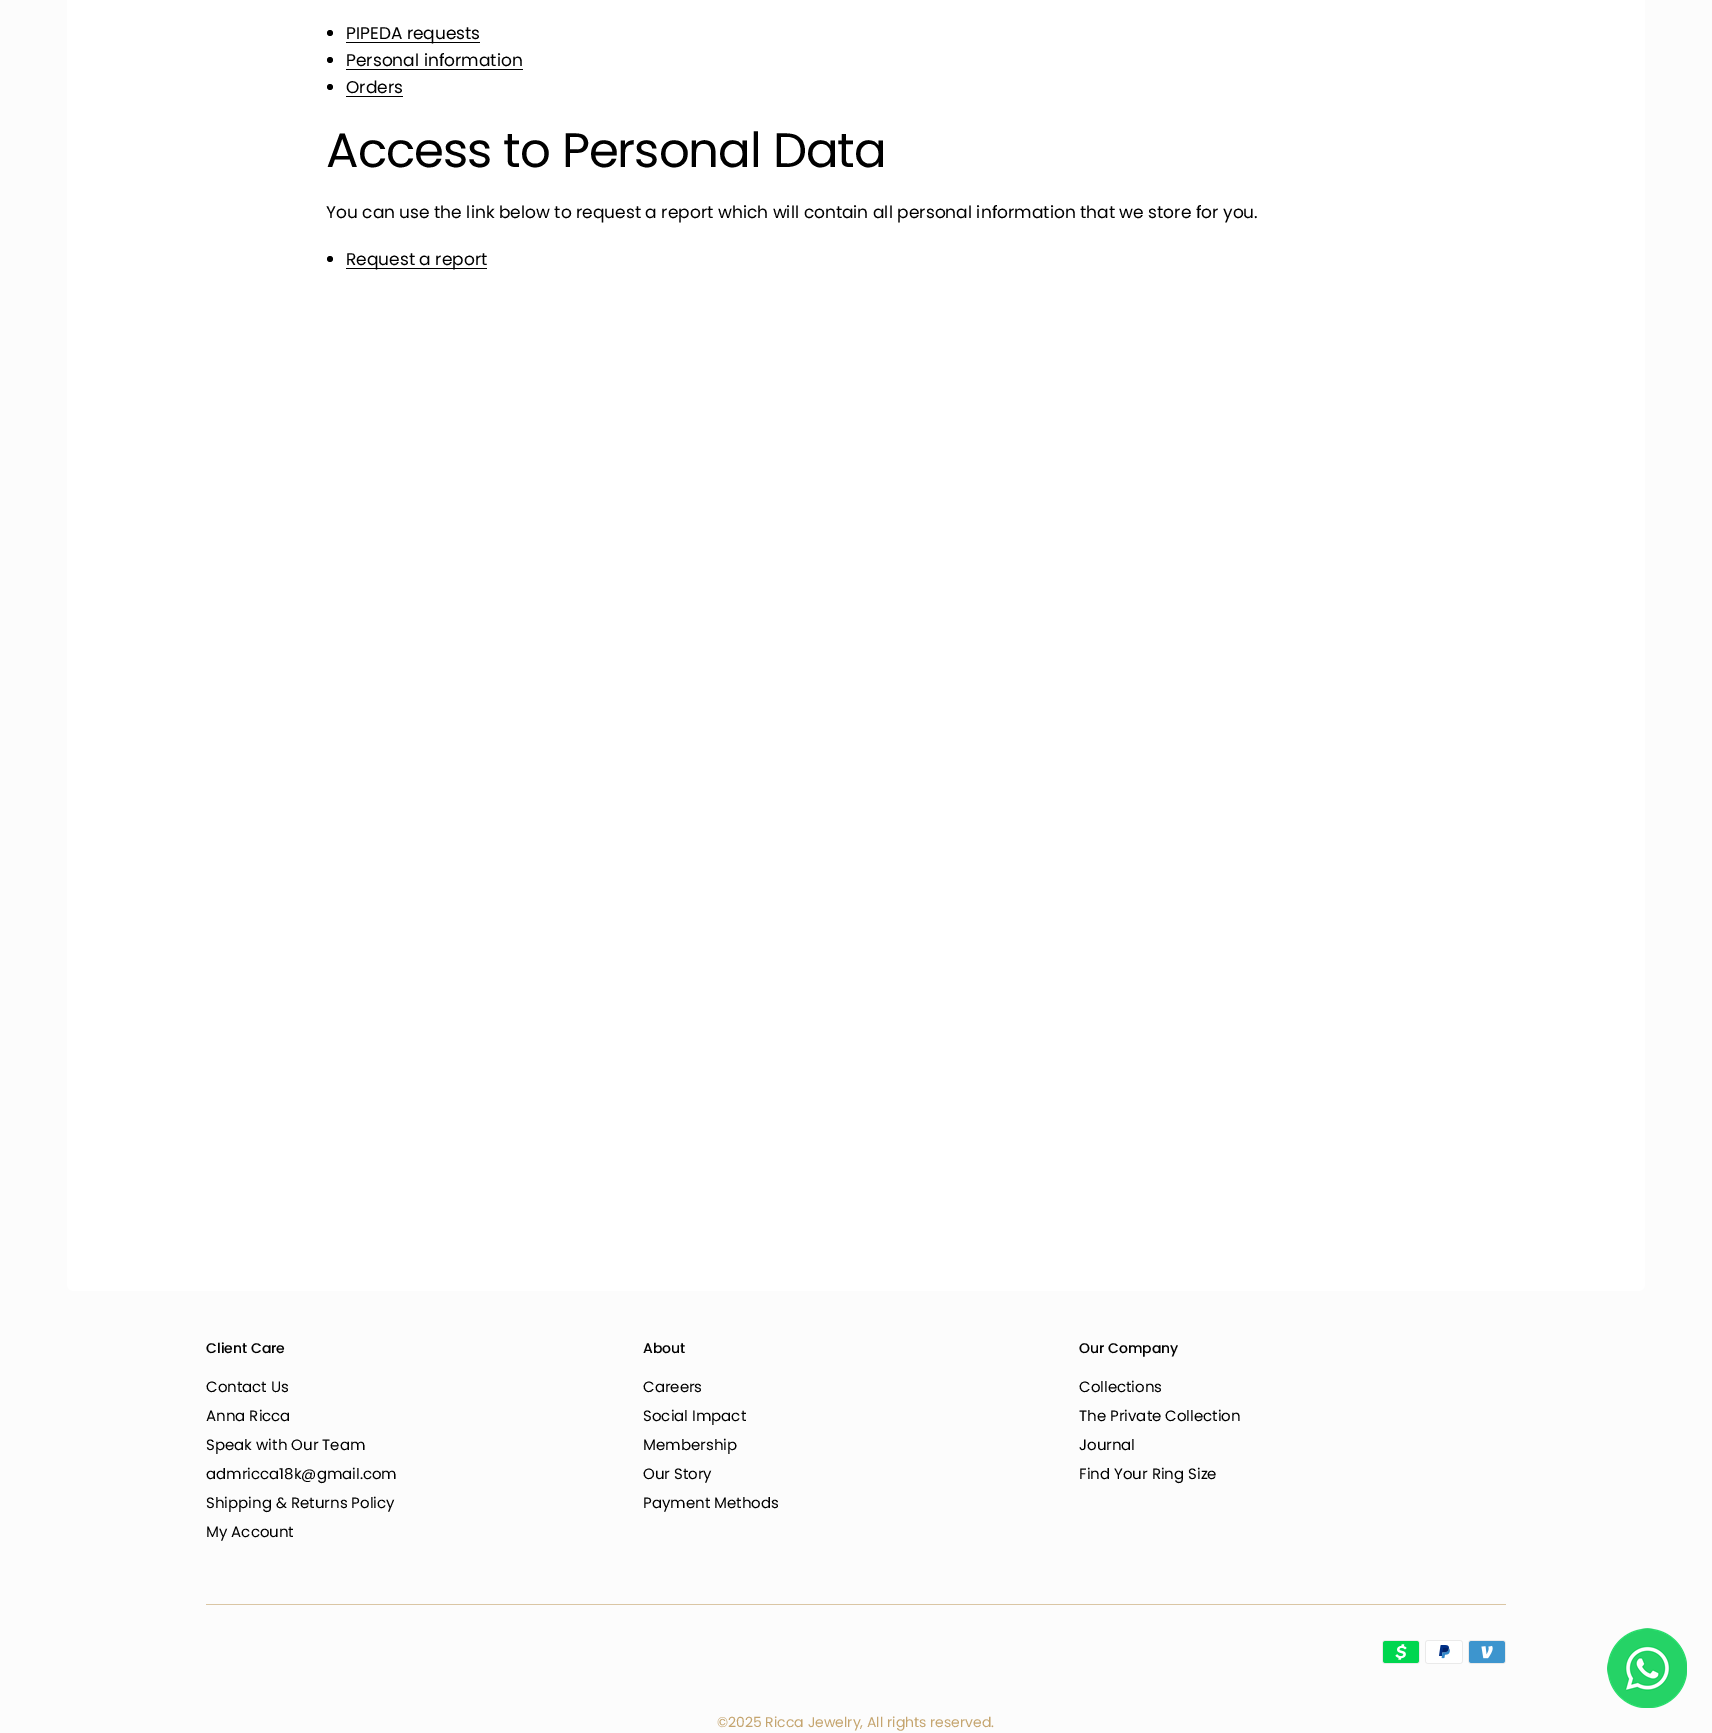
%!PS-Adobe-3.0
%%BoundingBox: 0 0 1712 1733
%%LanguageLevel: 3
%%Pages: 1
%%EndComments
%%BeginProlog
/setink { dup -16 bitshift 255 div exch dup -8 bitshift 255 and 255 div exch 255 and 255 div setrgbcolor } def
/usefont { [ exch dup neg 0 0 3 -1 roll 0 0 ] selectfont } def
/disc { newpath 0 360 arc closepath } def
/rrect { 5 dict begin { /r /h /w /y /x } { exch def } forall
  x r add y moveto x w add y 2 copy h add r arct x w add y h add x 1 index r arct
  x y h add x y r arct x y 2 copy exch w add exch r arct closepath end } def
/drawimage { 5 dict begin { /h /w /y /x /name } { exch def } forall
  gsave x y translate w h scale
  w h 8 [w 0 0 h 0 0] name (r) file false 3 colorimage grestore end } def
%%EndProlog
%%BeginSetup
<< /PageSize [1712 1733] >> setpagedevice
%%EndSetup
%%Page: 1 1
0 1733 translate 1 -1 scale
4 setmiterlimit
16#FCFCFC setink
0 0 1712 1733 rectfill
16#FFFFFF setink
67 -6 1578 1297 6 rrect fill
16#000000 setink
330 33 3 disc fill
346 42 134 1 rectfill
/Poppins-Regular 17 usefont
346 39 moveto (PIPEDA requests) show
330 60 3 disc fill
346 69 177 1 rectfill
346 66 moveto (Personal information) show
330 87 3 disc fill
346 96 57 1 rectfill
346 93 moveto (Orders) show
/Poppins-Regular 48.25 usefont
326 167 moveto -1 0 (Access to Personal Data) ashow
/Poppins-Regular 17 usefont
326 218 moveto (You can use the link below to request a report which will contain all personal information that we store for you.) show
330 259 3 disc fill
346 268 141 1 rectfill
346 265 moveto (Request a report) show
/Poppins-Medium 14 usefont
206 1353 moveto (Client Care) show
/Poppins-Regular 15 usefont
[
    [(Contact Us) 206 1392]
    [(Anna Ricca) 206 1421]
    [(Speak with Our Team) 206 1450]
    [(admricca18k@gmail.com) 206 1479]
    [(Shipping & Returns Policy) 206 1508]
    [(My Account) 206 1537]
] { aload pop moveto show } forall
/Poppins-Medium 14 usefont
643 1353 moveto (About) show
/Poppins-Regular 15 usefont
[
    [(Careers) 643 1392]
    [(Social Impact) 643 1421]
    [(Membership) 643 1450]
    [(Our Story) 643 1479]
    [(Payment Methods) 643 1508]
] { aload pop moveto show } forall
/Poppins-Medium 14 usefont
1079 1353 moveto (Our Company) show
/Poppins-Regular 15 usefont
[
    [(Collections) 1079 1392]
    [(The Private Collection) 1079 1421]
    [(Journal) 1079 1450]
    [(Find Your Ring Size) 1079 1479]
] { aload pop moveto show } forall
16#DAC6A4 setink
206 1604 1300 1 rectfill
(img1.raw) 1382 1640 38 24 drawimage
(img2.raw) 1425 1640 38 24 drawimage
(img3.raw) 1468 1640 38 24 drawimage
/Poppins-Regular 14 usefont
16#C5A56F setink
717 1727 moveto (©2025 Ricca Jewelry, All rights reserved.) show
(img4.raw) 1607 1628 80 80 drawimage
showpage
%%EOF
